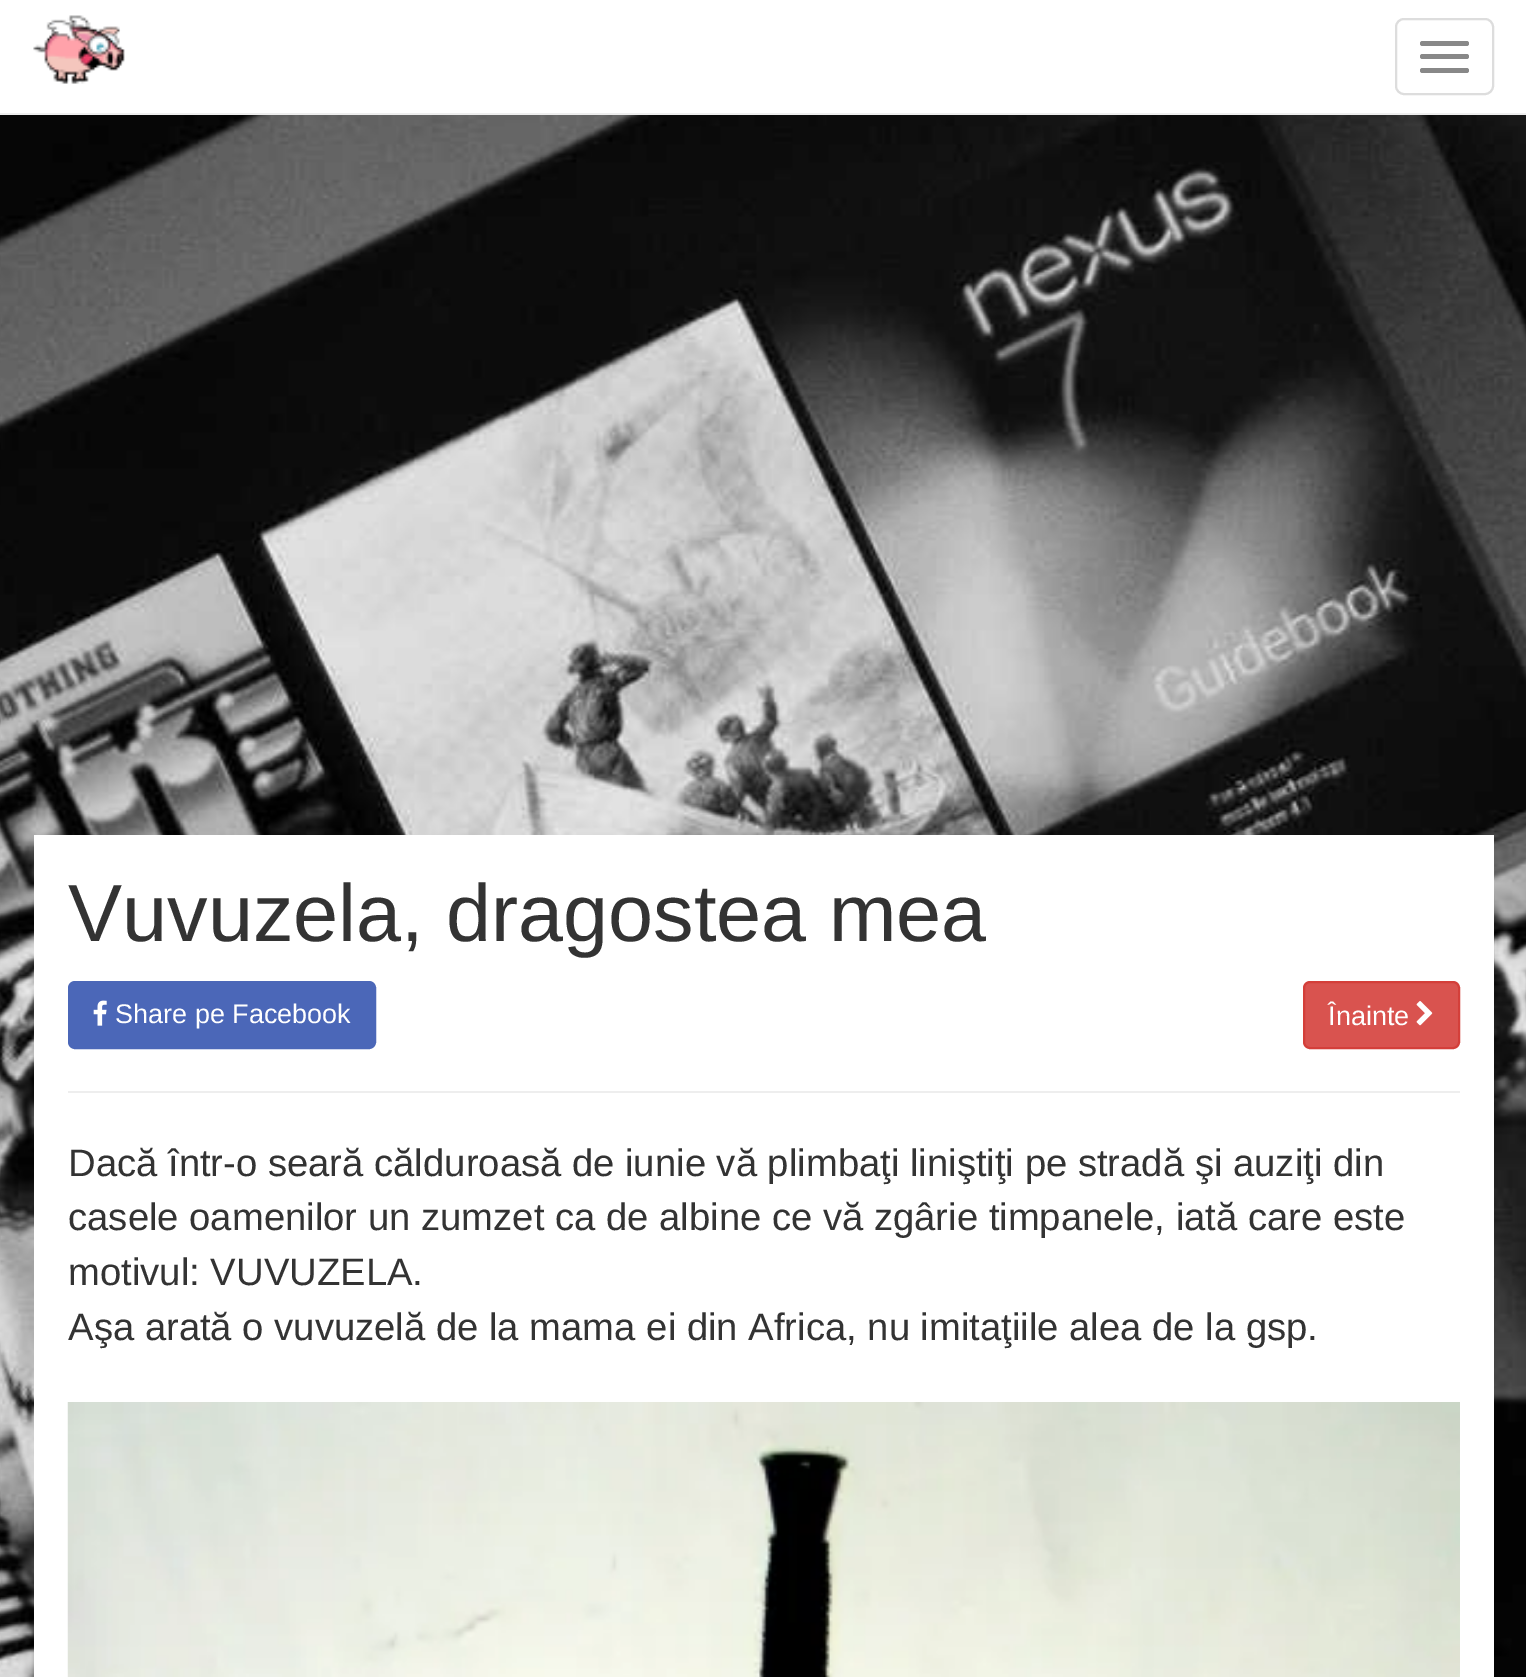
%!PS-Adobe-3.0
%%BoundingBox: 0 0 1526 1677
%%LanguageLevel: 3
%%Pages: 1
%%EndComments
%%BeginProlog
/setink { dup -16 bitshift 255 div exch dup -8 bitshift 255 and 255 div exch 255 and 255 div setrgbcolor } def
/usefont { [ exch dup neg 0 0 3 -1 roll 0 0 ] selectfont } def
/rrect { 5 dict begin { /r /h /w /y /x } { exch def } forall
  x r add y moveto x w add y 2 copy h add r arct x w add y h add x 1 index r arct
  x y h add x y r arct x y 2 copy exch w add exch r arct closepath end } def
/drawimage { 5 dict begin { /h /w /y /x /name } { exch def } forall
  gsave x y translate w h scale
  w h 8 [w 0 0 h 0 0] name (r) file false 3 colorimage grestore end } def
%%EndProlog
%%BeginSetup
<< /PageSize [1526 1677] >> setpagedevice
%%EndSetup
%%Page: 1 1
0 1677 translate 1 -1 scale
4 setmiterlimit
16#FFFFFF setink
0 0 1526 1677 rectfill
16#EEEEEE setink
0 113 1526 2 rectfill
(img1.raw) 33 15 92 69 drawimage
16#DDDDDD setink
2 setlinewidth
1396 19 97 75 8 rrect stroke
16#888888 setink
1420 41 49 5 2.5 rrect fill
1420 54 49 5 2.5 rrect fill
1420 68 49 5 2.5 rrect fill
(img2.raw) 0 115 1526 1562 drawimage
16#FFFFFF setink
34 835 1460 842 rectfill
16#EEEEEE setink
68 1091 1392 2 rectfill
/LiberationSans-Regular 81 usefont
16#333333 setink
68 941 moveto (Vuvuzela, dragostea mea) show
16#4B67B8 setink
69 982 306 66 6 rrect gsave fill grestore
stroke
(img3.raw) 93 1000 14 26 drawimage
/LiberationSans-Regular 27 usefont
16#FFFFFF setink
115 1023 moveto (Share pe Facebook) show
16#D9534F setink
1304 982 155 66 6 rrect gsave fill grestore
16#D43F3A setink
stroke
16#FFFFFF setink
1328 1025 moveto (Înainte) show
(img4.raw) 1416 1001 17 25 drawimage
/LiberationSans-Regular 38.25 usefont
16#333333 setink
[
    [(Dacă într-o seară călduroasă de iunie vă plimbaţi liniştiţi pe stradă şi auziţi din) 68 1176]
    [(casele oamenilor un zumzet ca de albine ce vă zgârie timpanele, iată care este) 68 1230]
    [(motivul: VUVUZELA.) 68 1285]
    [(Aşa arată o vuvuzelă de la mama ei din Africa, nu imitaţiile alea de la gsp.) 68 1340]
] { aload pop moveto show } forall
(img5.raw) 67 1402 1393 275 drawimage
showpage
%%EOF
